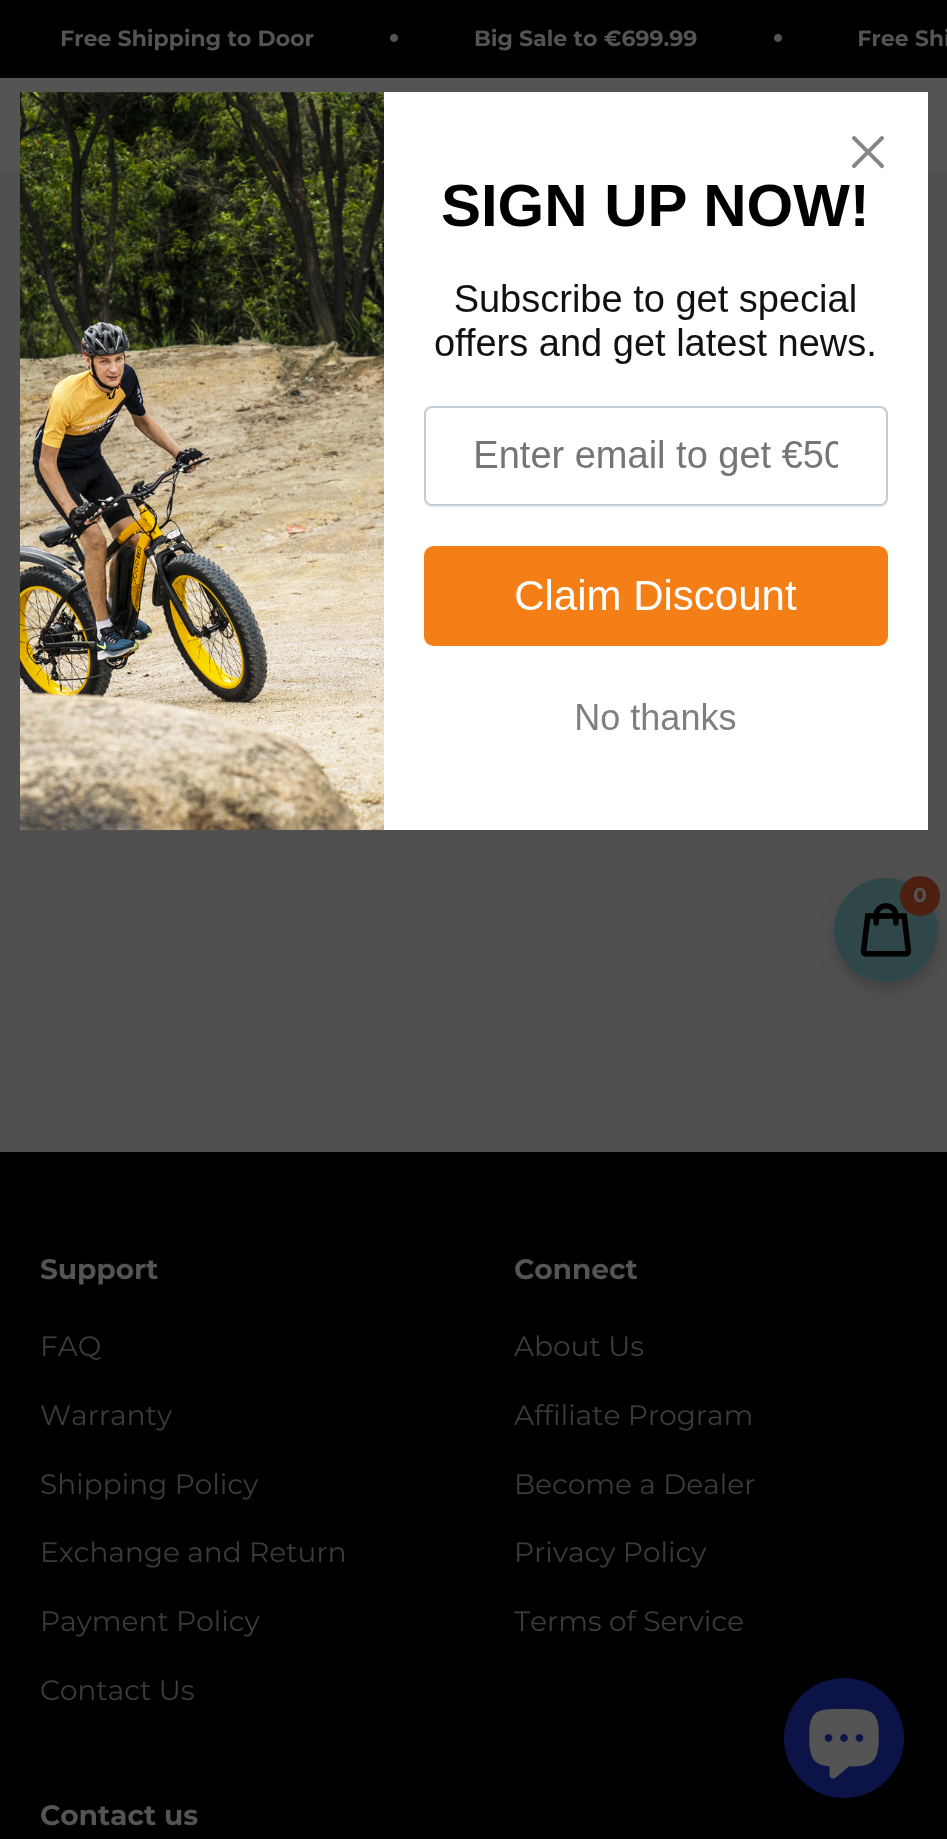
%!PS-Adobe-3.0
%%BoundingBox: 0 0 947 1839
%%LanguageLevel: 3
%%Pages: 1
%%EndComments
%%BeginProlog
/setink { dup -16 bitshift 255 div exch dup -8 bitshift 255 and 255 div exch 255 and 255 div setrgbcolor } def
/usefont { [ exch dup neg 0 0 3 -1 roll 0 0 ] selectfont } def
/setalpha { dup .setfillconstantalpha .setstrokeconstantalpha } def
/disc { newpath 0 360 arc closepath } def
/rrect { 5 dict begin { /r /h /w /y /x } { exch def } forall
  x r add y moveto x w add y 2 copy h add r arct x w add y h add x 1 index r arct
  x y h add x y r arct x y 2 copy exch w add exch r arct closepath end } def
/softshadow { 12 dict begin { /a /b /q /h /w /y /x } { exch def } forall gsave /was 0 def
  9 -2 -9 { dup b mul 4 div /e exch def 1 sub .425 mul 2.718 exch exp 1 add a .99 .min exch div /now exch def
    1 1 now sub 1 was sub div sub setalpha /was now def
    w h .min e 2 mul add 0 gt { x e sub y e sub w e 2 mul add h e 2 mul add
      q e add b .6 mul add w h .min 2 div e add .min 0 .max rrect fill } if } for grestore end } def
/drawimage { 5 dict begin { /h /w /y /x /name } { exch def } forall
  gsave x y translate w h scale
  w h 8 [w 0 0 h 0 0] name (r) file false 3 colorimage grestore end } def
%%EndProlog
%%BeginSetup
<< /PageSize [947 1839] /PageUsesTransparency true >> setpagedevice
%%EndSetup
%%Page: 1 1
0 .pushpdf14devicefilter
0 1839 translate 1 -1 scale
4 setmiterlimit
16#F2F2F2 setink
0 0 947 1839 rectfill
16#000000 setink
0 0 947 78 rectfill
/Montserrat-Bold 22 usefont
16#FFFFFF setink
60 46 moveto (Free Shipping to Door) show
394 38 4 disc fill
474 46 moveto (Big Sale to €699.99) show
778 38 4 disc fill
857 46 moveto (Free Sh) show
0 78 947 92 rectfill
16#000000 setink
834 886 104 104 52 4 0.08 softshadow
836 886 104 104 52 10 0.12 softshadow
16#92D8DF setink
886 930 52 disc fill
(img2.raw) 860 903 52 54 drawimage
16#E75F33 setink
920 896 20 disc fill
/Montserrat-Bold 20 usefont
16#FFFFFF setink
913 902 moveto (0) show
16#000000 setink
0 1152 947 687 rectfill
/Montserrat-Bold 28 usefont
16#FFFFFF setink
40 1279 moveto (Support) show
/Montserrat-Regular 28 usefont
16#B3B3B3 setink
[
    [(FAQ) 40 1356]
    [(Warranty) 40 1425]
    [(Shipping Policy) 40 1494]
    [(Exchange and Return) 40 1562]
    [(Payment Policy) 40 1631]
    [(Contact Us) 40 1700]
] { aload pop moveto show } forall
/Montserrat-Bold 28 usefont
16#FFFFFF setink
514 1279 moveto (Connect) show
/Montserrat-Regular 28 usefont
16#B3B3B3 setink
[
    [(About Us) 514 1356]
    [(Affiliate Program) 514 1425]
    [(Become a Dealer) 514 1494]
    [(Privacy Policy) 514 1562]
    [(Terms of Service) 514 1631]
] { aload pop moveto show } forall
/Montserrat-Bold 28 usefont
16#FFFFFF setink
40 1825 moveto (Contact us) show
16#233AD7 setink
844 1738 60 disc fill
(img3.raw) 809 1709 70 70 drawimage
(img1.raw) 0 28 947 1798 drawimage
.poppdf14devicefilter showpage
%%EOF
